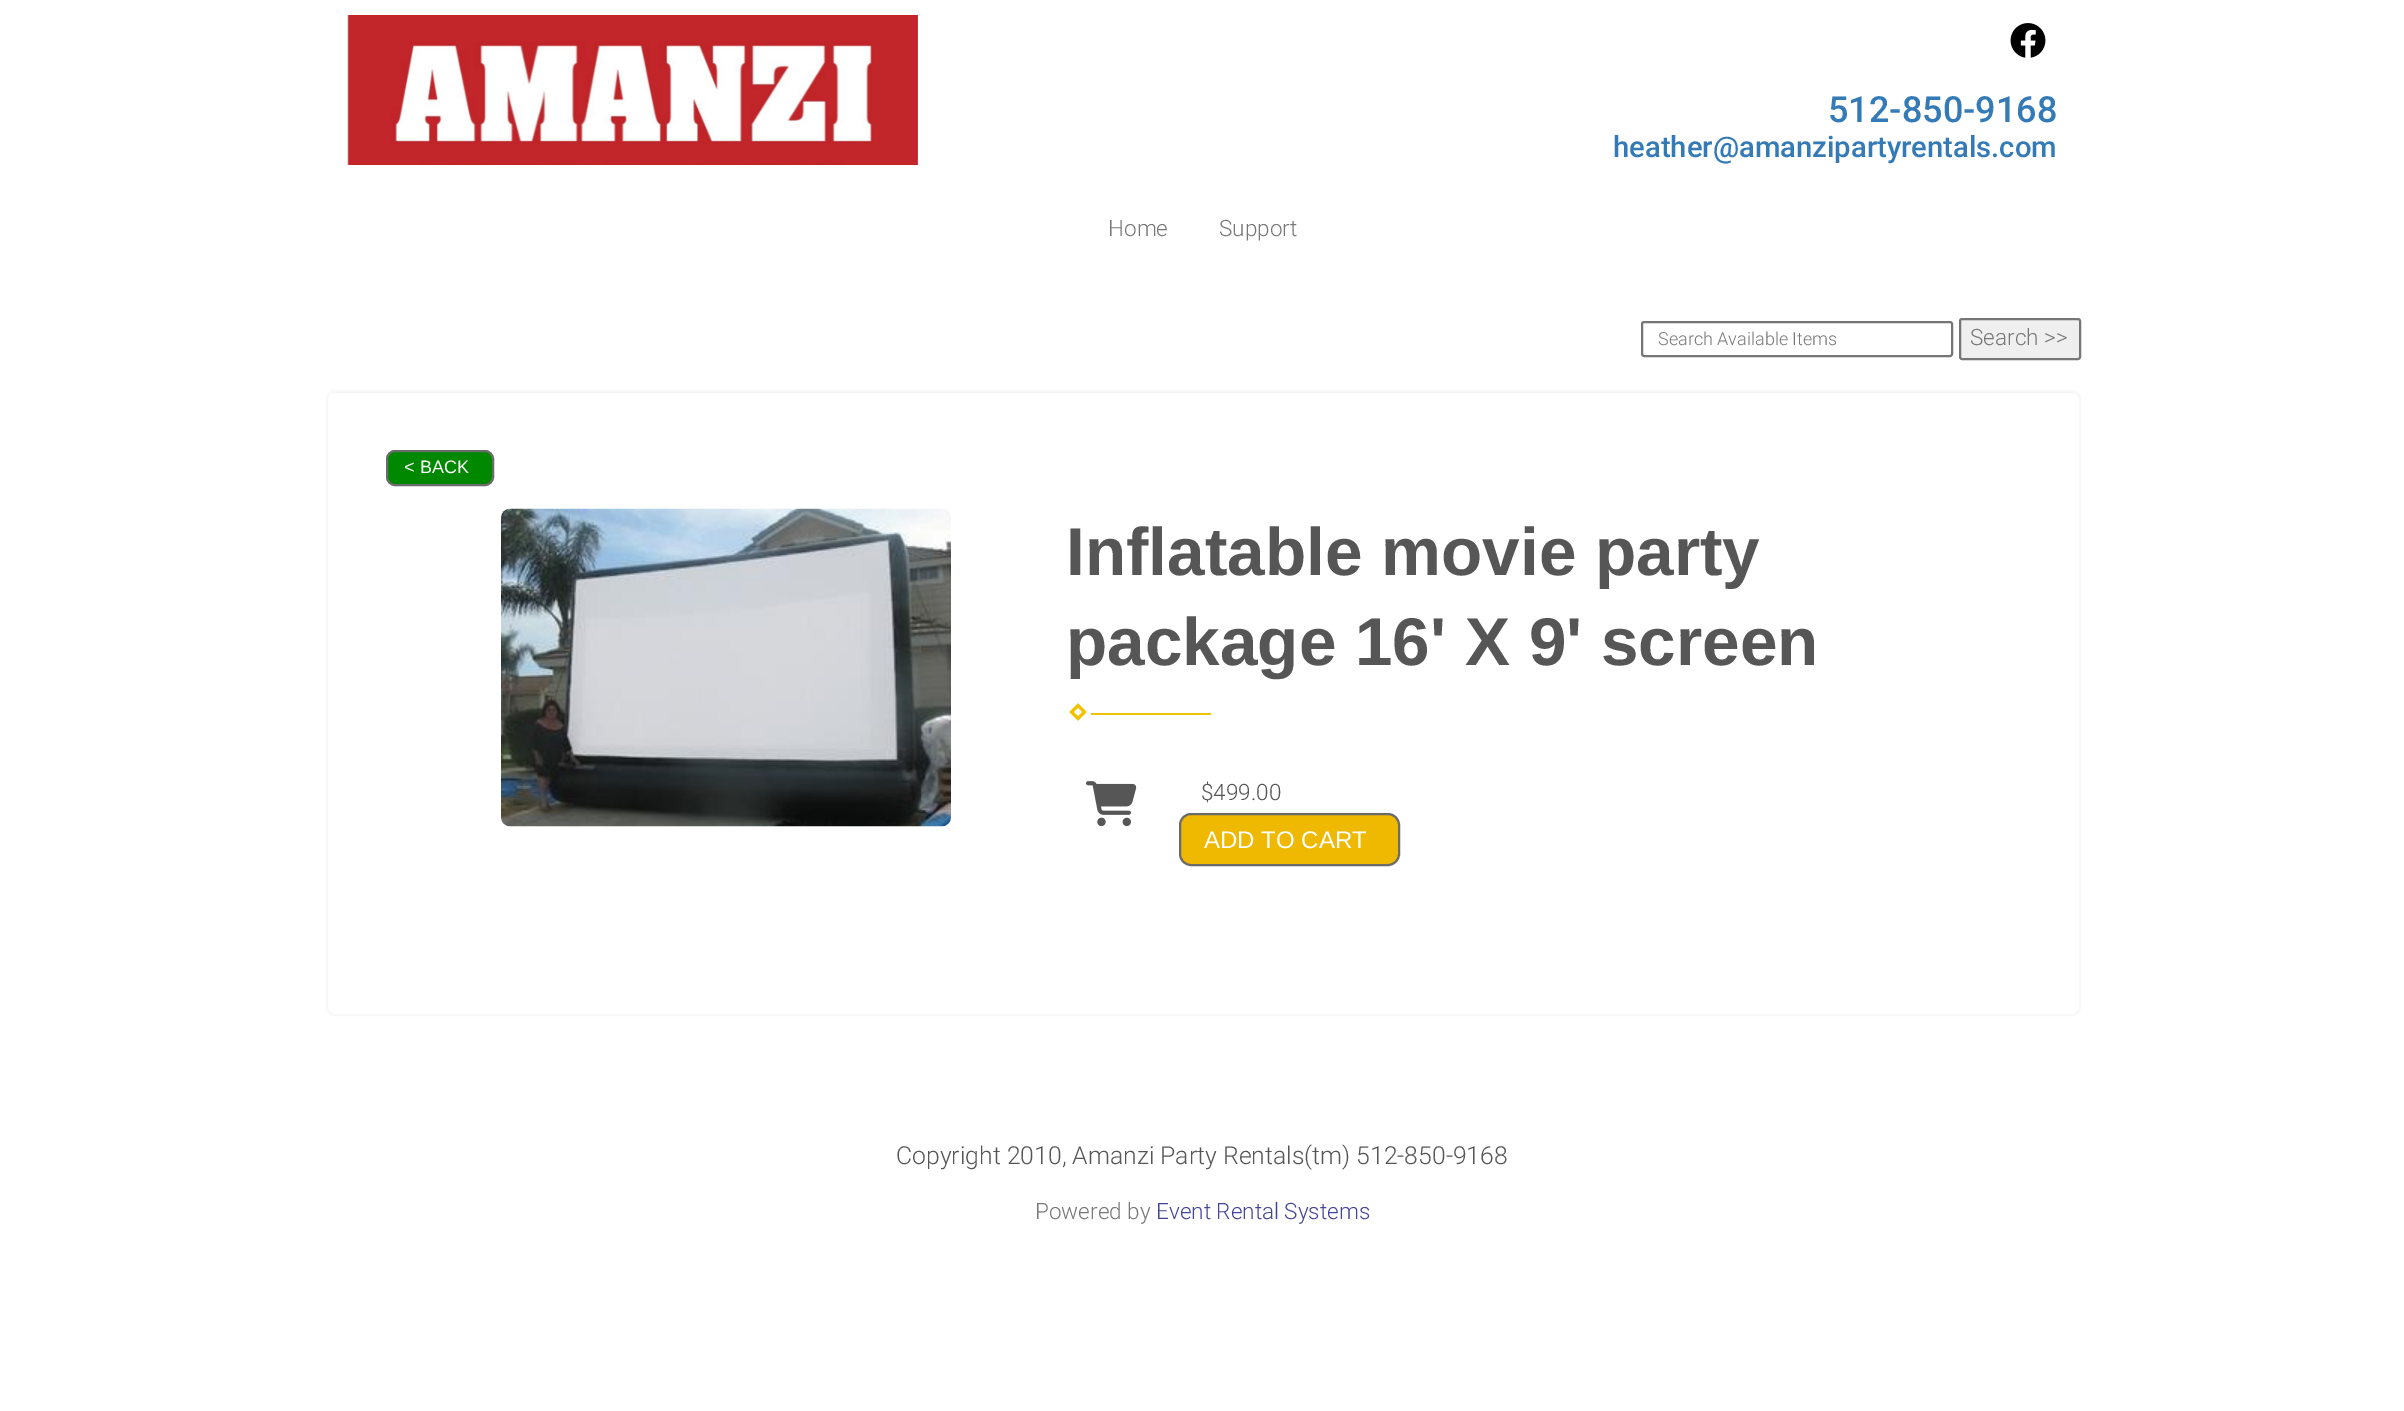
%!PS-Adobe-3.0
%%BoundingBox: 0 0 2404 1411
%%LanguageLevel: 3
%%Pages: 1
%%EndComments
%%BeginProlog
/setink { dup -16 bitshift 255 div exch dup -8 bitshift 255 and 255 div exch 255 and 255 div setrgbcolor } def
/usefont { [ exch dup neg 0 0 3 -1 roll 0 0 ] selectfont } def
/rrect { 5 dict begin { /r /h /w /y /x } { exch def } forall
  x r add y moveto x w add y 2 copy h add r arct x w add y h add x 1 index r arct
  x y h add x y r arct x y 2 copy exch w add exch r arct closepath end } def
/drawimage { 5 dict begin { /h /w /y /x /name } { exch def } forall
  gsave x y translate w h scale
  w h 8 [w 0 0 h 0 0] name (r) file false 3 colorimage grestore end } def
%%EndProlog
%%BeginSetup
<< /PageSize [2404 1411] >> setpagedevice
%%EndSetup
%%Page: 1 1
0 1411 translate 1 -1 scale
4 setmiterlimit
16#FFFFFF setink
0 0 2404 1411 rectfill
(img1.raw) 347 15 571 150 drawimage
(img2.raw) 2010 23 36 35 drawimage
/Roboto-Medium 36 usefont
16#337AB7 setink
1828 122 moveto (512-850-9168) show
/Roboto-Medium 29.25 usefont
1613 157 moveto (heather@amanzipartyrentals.com) show
/Roboto-Light 22.5 usefont
16#777777 setink
1108 236 moveto (Home) show
1219 236 moveto (Support) show
16#767676 setink
2 setlinewidth
1642 322 310 34 2 rrect stroke
/Roboto-Light 18 usefont
16#777777 setink
1658 345 moveto (Search Available Items) show
16#EFEFEF setink
1960 319 120 40 2 rrect gsave fill grestore
16#767676 setink
stroke
/Roboto-Light 22.5 usefont
16#777777 setink
1970 345 moveto (Search >>) show
16#F2F2F2 setink
334 393 moveto 2072 393 lineto 2076 393 2079 396 2079 400 curveto 2079 396 2075 392 2071 392 curveto 335 392 lineto 331 392 327 396 327 400 curveto 327 396 330 393 334 393 curveto closepath fill
16#F9F8F8 setink
327 391 1753 624 8 rrect stroke
16#008800 setink
387 451 106 34 8 rrect gsave fill grestore
16#6B6B6B setink
stroke
/LiberationSans-Regular 18 usefont
16#FFFFFF setink
404 473 moveto (< BACK) show
(img3.raw) 501 508 450 319 drawimage
/LiberationSans-Bold 67.5 usefont
16#565656 setink
1066 575 moveto (Inflatable movie party) show
1066 665 moveto (package 16' X 9' screen) show
16#EEC400 setink
3 setlinewidth
1078 705.5 moveto 1084.5 712 lineto 1078 718.5 lineto 1071.5 712 lineto closepath stroke
1091 713 120 2 rectfill
(img4.raw) 1086 781 51 46 drawimage
/Roboto-Light 22.5 usefont
16#565656 setink
1201 800 moveto ($499.00) show
16#EEB900 setink
1180 814 219 51 11 rrect gsave fill grestore
16#6B6B6B setink
2 setlinewidth
stroke
/LiberationSans-Regular 24 usefont
16#FFFFFF setink
1204 848 moveto (ADD TO CART) show
/Roboto-Light 24.75 usefont
16#565656 setink
896 1164 moveto (Copyright 2010, Amanzi Party Rentals\(tm\) 512-850-9168) show
/Roboto-Light 22.5 usefont
16#777777 setink
1035 1219 moveto (Powered by) show
16#444499 setink
1156 1219 moveto (Event Rental Systems) show
showpage
%%EOF
